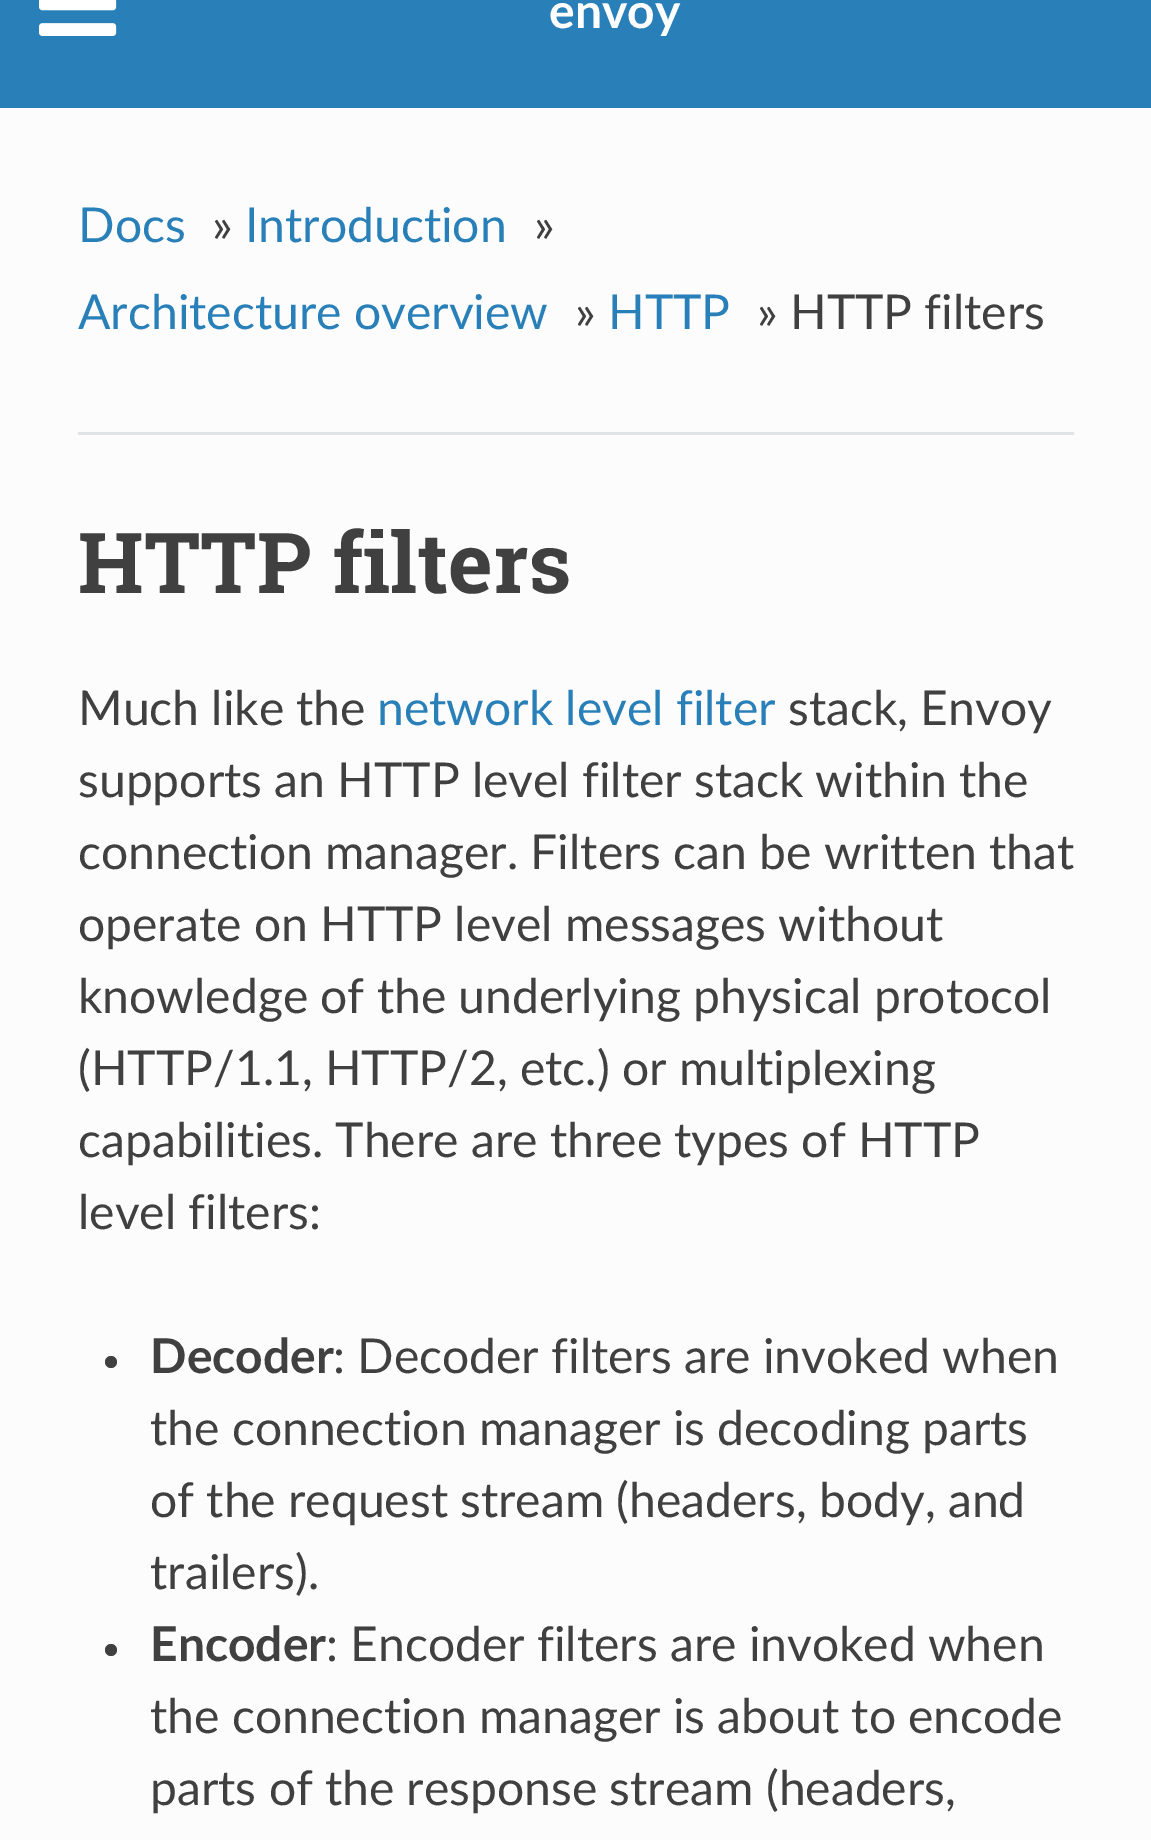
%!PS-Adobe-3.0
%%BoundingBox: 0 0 1151 1840
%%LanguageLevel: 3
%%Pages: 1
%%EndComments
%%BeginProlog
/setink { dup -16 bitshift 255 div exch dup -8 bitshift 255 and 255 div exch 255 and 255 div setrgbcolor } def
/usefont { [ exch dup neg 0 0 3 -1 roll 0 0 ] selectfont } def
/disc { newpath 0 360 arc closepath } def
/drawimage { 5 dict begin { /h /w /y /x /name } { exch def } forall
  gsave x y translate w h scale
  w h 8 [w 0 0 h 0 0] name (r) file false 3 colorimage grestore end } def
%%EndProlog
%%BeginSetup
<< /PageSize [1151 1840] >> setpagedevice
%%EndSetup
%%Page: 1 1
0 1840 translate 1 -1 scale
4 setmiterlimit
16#FCFCFC setink
0 0 1151 1840 rectfill
16#2980B9 setink
0 0 1151 108 rectfill
(img1.raw) 39 0 78 36 drawimage
/Lato-Bold 48 usefont
16#FFFFFF setink
549 28 moveto (envoy) show
/Lato-Regular 48 usefont
16#2980B9 setink
78 242 moveto (Docs) show
16#404040 setink
212 242 moveto (») show
16#2980B9 setink
245 242 moveto (Introduction) show
16#404040 setink
534 242 moveto (») show
16#2980B9 setink
78 329 moveto (Architecture overview) show
16#404040 setink
575 329 moveto (») show
16#2980B9 setink
608 329 moveto (HTTP) show
16#404040 setink
757 329 moveto (» HTTP filters) show
16#E1E4E5 setink
78 432 996 3 rectfill
/RobotoSlab-Bold 84 usefont
16#404040 setink
78 593 moveto (HTTP filters) show
/Lato-Regular 48 usefont
78 725 moveto (Much like the) show
16#2980B9 setink
377 725 moveto (network level filter) show
16#404040 setink
[
    [(stack, Envoy) 788 725]
    [(supports an HTTP level filter stack within the) 78 797]
    [(connection manager. Filters can be written that) 78 869]
    [(operate on HTTP level messages without) 78 941]
    [(knowledge of the underlying physical protocol) 78 1013]
    [(\(HTTP/1.1, HTTP/2, etc.\) or multiplexing) 78 1085]
    [(capabilities. There are three types of HTTP) 78 1157]
    [(level filters:) 78 1229]
] { aload pop moveto show } forall
111 1362 6 disc fill
/Lato-Bold 48 usefont
150 1373 moveto (Decoder) show
/Lato-Regular 48 usefont
[
    [(: Decoder filters are invoked when) 333 1373]
    [(the connection manager is decoding parts) 150 1445]
    [(of the request stream \(headers, body, and) 150 1517]
    [(trailers\).) 150 1589]
] { aload pop moveto show } forall
111 1650 6 disc fill
/Lato-Bold 48 usefont
150 1661 moveto (Encoder) show
/Lato-Regular 48 usefont
[
    [(: Encoder filters are invoked when) 326 1661]
    [(the connection manager is about to encode) 150 1733]
    [(parts of the response stream \(headers,) 150 1805]
] { aload pop moveto show } forall
showpage
%%EOF
